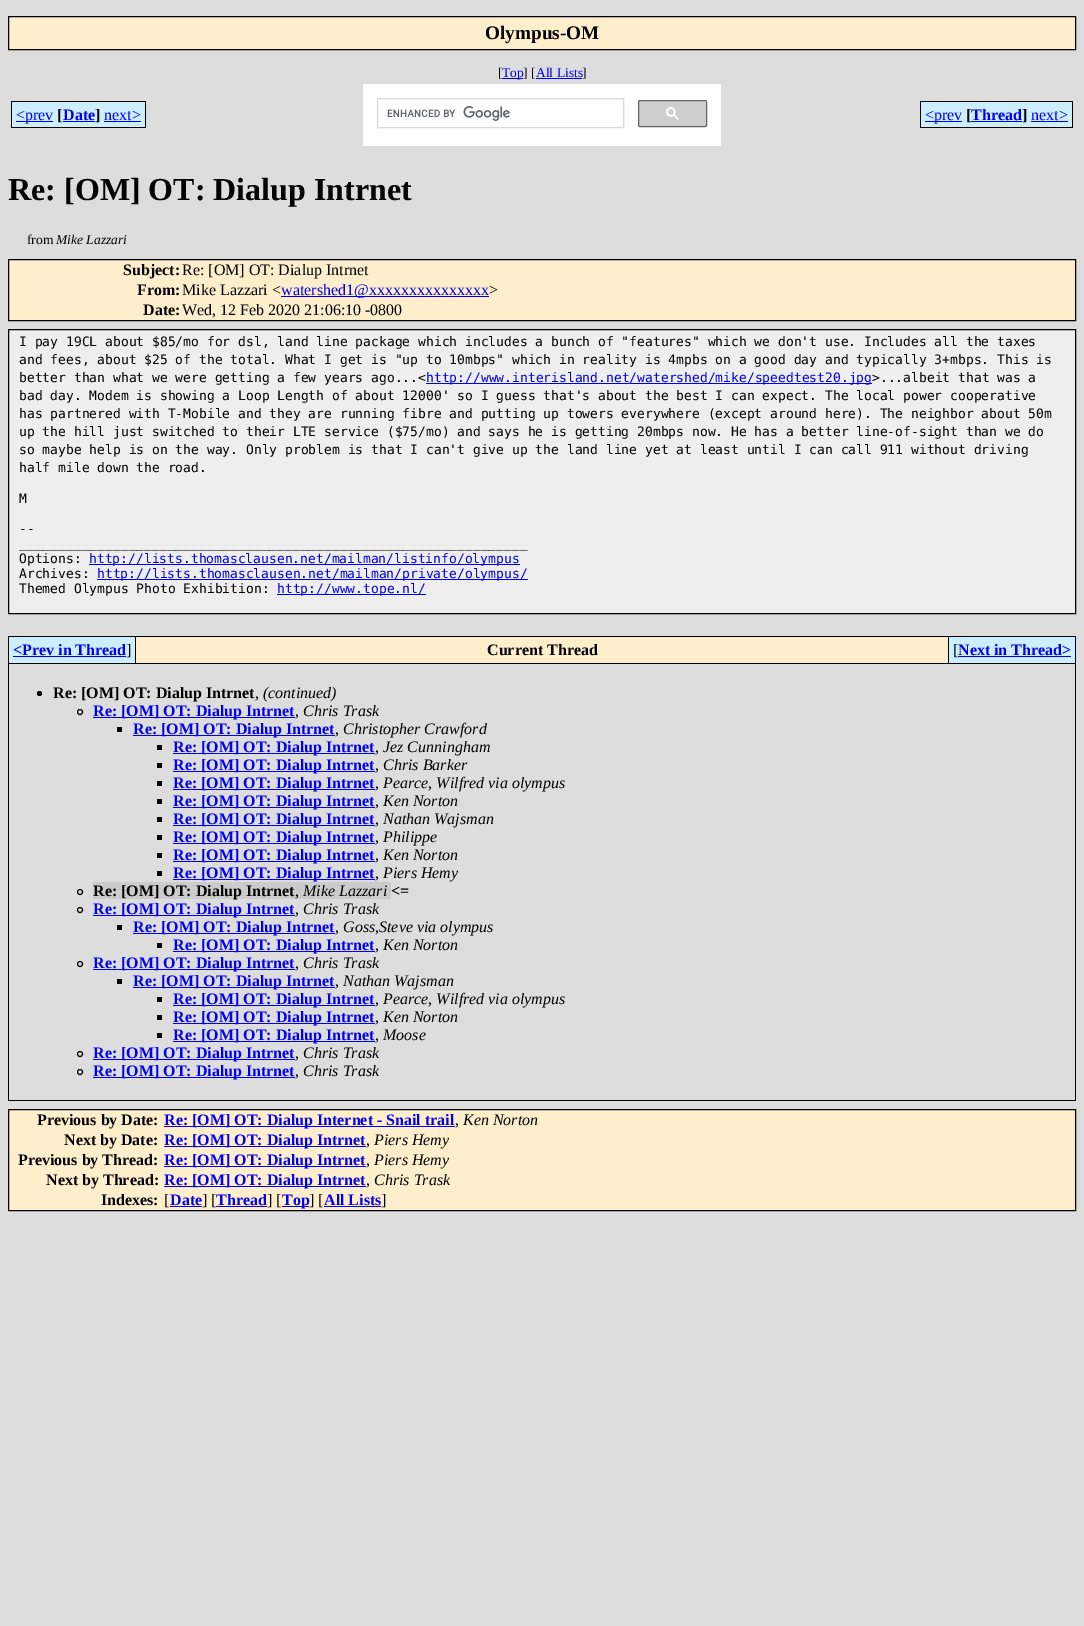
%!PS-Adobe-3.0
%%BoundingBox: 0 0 1084 1626
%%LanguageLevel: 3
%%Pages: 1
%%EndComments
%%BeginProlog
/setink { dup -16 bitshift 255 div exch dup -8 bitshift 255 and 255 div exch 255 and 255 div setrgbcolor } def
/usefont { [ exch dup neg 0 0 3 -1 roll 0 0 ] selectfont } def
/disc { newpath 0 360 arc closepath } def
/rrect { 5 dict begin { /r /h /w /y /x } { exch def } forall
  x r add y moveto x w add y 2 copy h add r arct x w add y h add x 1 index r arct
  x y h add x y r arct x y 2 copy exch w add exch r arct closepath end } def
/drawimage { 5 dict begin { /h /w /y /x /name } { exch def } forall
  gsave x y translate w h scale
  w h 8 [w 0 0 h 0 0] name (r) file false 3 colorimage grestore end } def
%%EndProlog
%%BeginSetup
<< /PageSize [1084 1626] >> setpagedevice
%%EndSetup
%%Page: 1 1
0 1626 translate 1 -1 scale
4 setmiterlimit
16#DDDDDD setink
0 0 1084 1626 rectfill
16#FFEECC setink
8.5 16.5 moveto 1075.5 16.5 lineto 1075.5 49.5 lineto 8.5 49.5 lineto closepath gsave fill grestore
16#000000 setink
stroke
/LiberationSerif-Bold 19.25 usefont
485 39 moveto (Olympus-OM) show
/LiberationSerif-Regular 13.5 usefont
498 77 moveto ([) show
16#0000EE setink
502 78 21 1 rectfill
502 77 moveto (Top) show
16#000000 setink
523 77 moveto (] [) show
16#0000EE setink
536 77 moveto (All Lists) show
16#000000 setink
582 77 moveto (]) show
[
    [536 78 46 1 16#0000EE]
    [12 102 41 25 16#CCEEFF]
    [16 121 37 1 16#0000EE]
    [53 101 10 27 16#CCEEFF]
] { aload pop setink rectfill } forall
/LiberationSerif-Regular 16 usefont
16#0000EE setink
16 120 moveto (<prev) show
[
    [11 101 42 1 16#000000]
    [11 127 42 1 16#000000]
    [11 101 1 27 16#000000]
    [53 127 42 1 16#000000]
] { aload pop setink rectfill } forall
/LiberationSerif-Bold 16 usefont
57 120 moveto ([) show
16#CCEEFF setink
63 102 32 25 rectfill
16#0000EE setink
63 121 32 1 rectfill
63 120 moveto (Date) show
[
    [53 101 42 1 16#000000]
    [95 101 9 27 16#CCEEFF]
    [95 101 51 1 16#000000]
] { aload pop setink rectfill } forall
95 120 moveto (]) show
95 127 9 1 rectfill
16#CCEEFF setink
104 102 41 25 rectfill
/LiberationSerif-Regular 16 usefont
16#0000EE setink
104 120 moveto (next>) show
[
    [145 101 1 27 16#000000]
    [104 127 42 1 16#000000]
    [104 121 37 1 16#0000EE]
    [363 84 358 62 16#FFFFFF]
] { aload pop setink rectfill } forall
16#D9D9D9 setink
377.5 98.5 246 29 rectstroke
(img1.raw) 387 106 123 15 drawimage
16#CECECE setink
638.5 100.5 68 26 1.5 rrect gsave fill grestore
16#666666 setink
stroke
(img2.raw) 666 107 13 13 drawimage
[
    [921 102 41 25 16#CCEEFF]
    [925 121 37 1 16#0000EE]
    [962 101 9 27 16#CCEEFF]
] { aload pop setink rectfill } forall
16#0000EE setink
925 120 moveto (<prev) show
[
    [920 101 42 1 16#000000]
    [920 127 42 1 16#000000]
    [920 101 1 27 16#000000]
    [962 127 60 1 16#000000]
] { aload pop setink rectfill } forall
/LiberationSerif-Bold 16 usefont
966 120 moveto ([) show
16#CCEEFF setink
971 102 51 25 rectfill
16#0000EE setink
971 121 51 1 rectfill
971 120 moveto (Thread) show
[
    [962 101 60 1 16#000000]
    [1022 101 9 27 16#CCEEFF]
    [1022 101 51 1 16#000000]
] { aload pop setink rectfill } forall
1022 120 moveto (]) show
1022 127 9 1 rectfill
16#CCEEFF setink
1031 102 41 25 rectfill
/LiberationSerif-Regular 16 usefont
16#0000EE setink
1031 120 moveto (next>) show
[
    [1072 101 1 27 16#000000]
    [1031 127 42 1 16#000000]
    [1031 121 37 1 16#0000EE]
] { aload pop setink rectfill } forall
/LiberationSerif-Bold 32 usefont
16#000000 setink
8 200 moveto (Re: [OM] OT: Dialup Intrnet) show
/LiberationSerif-Regular 13.5 usefont
27 244 moveto (from) show
/LiberationSerif-Italic 13.5 usefont
56 244 moveto (Mike Lazzari) show
16#FFEECC setink
8.5 259.5 moveto 1075.5 259.5 lineto 1075.5 320.5 lineto 8.5 320.5 lineto closepath gsave fill grestore
16#000000 setink
stroke
/LiberationSerif-Bold 16 usefont
123 275 moveto (Subject:) show
/LiberationSerif-Regular 16 usefont
182 275 moveto (Re: [OM] OT: Dialup Intrnet) show
/LiberationSerif-Bold 16 usefont
137 295 moveto (From:) show
/LiberationSerif-Regular 16 usefont
182 295 moveto (Mike Lazzari <) show
16#0000EE setink
281 296 208 1 rectfill
281 295 moveto (watershed1@xxxxxxxxxxxxxxx) show
16#000000 setink
489 295 moveto (>) show
/LiberationSerif-Bold 16 usefont
143 315 moveto (Date:) show
/LiberationSerif-Regular 16 usefont
182 315 moveto (Wed, 12 Feb 2020 21:06:10 -0800) show
16#EEEEEE setink
8.5 329.5 moveto 1075.5 329.5 lineto 1075.5 613.5 lineto 8.5 613.5 lineto closepath gsave fill grestore
16#000000 setink
stroke
/DejaVuSansMono-Regular 13 usefont
[
    [(I pay 19CL about $85/mo for dsl, land line package which includes a bunch of "features" which we don't use. Includes all the taxes) 19 346]
    [(and fees, about $25 of the total. What I get is "up to 10mbps" which in reality is 4mpbs on a good day and typically 3+mbps. This is) 19 364]
    [(better than what we were getting a few years ago...<) 19 382]
] { aload pop moveto show } forall
16#0000EE setink
426 383 446 1 rectfill
426 382 moveto (http://www.interisland.net/watershed/mike/speedtest20.jpg) show
16#000000 setink
[
    [(>...albeit that was a) 872 382]
    [(bad day. Modem is showing a Loop Length of about 12000' so I guess that's about the best I can expect. The local power cooperative) 19 400]
    [(has partnered with T-Mobile and they are running fibre and putting up towers everywhere \(except around here\). The neighbor about 50m) 19 418]
    [(up the hill just switched to their LTE service \($75/mo\) and says he is getting 20mbps now. He has a better line-of-sight than we do) 19 436]
    [(so maybe help is on the way. Only problem is that I can't give up the land line yet at least until I can call 911 without driving) 19 454]
    [(half mile down the road.) 19 472]
    [(M) 19 503]
    [(--) 19 533]
    [(_________________________________________________________________) 19 548]
    [(Options:) 19 563]
] { aload pop moveto show } forall
16#0000EE setink
89 564 431 1 rectfill
89 563 moveto (http://lists.thomasclausen.net/mailman/listinfo/olympus) show
16#000000 setink
19 578 moveto (Archives:) show
16#0000EE setink
97 579 431 1 rectfill
97 578 moveto (http://lists.thomasclausen.net/mailman/private/olympus/) show
16#000000 setink
19 593 moveto (Themed Olympus Photo Exhibition:) show
16#0000EE setink
277 594 149 1 rectfill
277 593 moveto (http://www.tope.nl/) show
16#000000 setink
8 636 1068 465 rectfill
16#CCEEFF setink
9 637 126 26 rectfill
/LiberationSerif-Bold 16 usefont
16#0000EE setink
13 655 moveto (<Prev in Thread) show
13 656 113 1 rectfill
/LiberationSerif-Regular 16 usefont
16#000000 setink
126 655 moveto (]) show
16#FFEECC setink
136 637 812 26 rectfill
/LiberationSerif-Bold 16 usefont
16#000000 setink
487 655 moveto (Current Thread) show
16#CCEEFF setink
949 637 126 26 rectfill
/LiberationSerif-Regular 16 usefont
16#000000 setink
953 655 moveto ([) show
/LiberationSerif-Bold 16 usefont
16#0000EE setink
958 655 moveto (Next in Thread>) show
958 656 113 1 rectfill
16#DDDDDD setink
9 664 1066 436 rectfill
16#000000 setink
39.5 693.5 2.5 disc fill
53 698 moveto (Re: [OM] OT: Dialup Intrnet) show
/LiberationSerif-Italic 16 usefont
263 698 moveto (\(continued\)) show
/LiberationSerif-Regular 16 usefont
255 698 moveto (,) show
80 712 2.5 disc stroke
16#0000EE setink
93 717 202 1 rectfill
/LiberationSerif-Bold 16 usefont
93 716 moveto (Re: [OM] OT: Dialup Intrnet) show
/LiberationSerif-Italic 16 usefont
16#000000 setink
303 716 moveto (Chris Trask) show
/LiberationSerif-Regular 16 usefont
295 716 moveto (,) show
117 727 5 5 rectfill
16#0000EE setink
133 735 202 1 rectfill
/LiberationSerif-Bold 16 usefont
133 734 moveto (Re: [OM] OT: Dialup Intrnet) show
/LiberationSerif-Italic 16 usefont
16#000000 setink
343 734 moveto (Christopher Crawford) show
/LiberationSerif-Regular 16 usefont
335 734 moveto (,) show
157 745 5 5 rectfill
16#0000EE setink
173 753 202 1 rectfill
/LiberationSerif-Bold 16 usefont
173 752 moveto (Re: [OM] OT: Dialup Intrnet) show
/LiberationSerif-Italic 16 usefont
16#000000 setink
383 752 moveto (Jez Cunningham) show
/LiberationSerif-Regular 16 usefont
375 752 moveto (,) show
157 763 5 5 rectfill
16#0000EE setink
173 771 202 1 rectfill
/LiberationSerif-Bold 16 usefont
173 770 moveto (Re: [OM] OT: Dialup Intrnet) show
/LiberationSerif-Italic 16 usefont
16#000000 setink
383 770 moveto (Chris Barker) show
/LiberationSerif-Regular 16 usefont
375 770 moveto (,) show
157 781 5 5 rectfill
16#0000EE setink
173 789 202 1 rectfill
/LiberationSerif-Bold 16 usefont
173 788 moveto (Re: [OM] OT: Dialup Intrnet) show
/LiberationSerif-Italic 16 usefont
16#000000 setink
383 788 moveto (Pearce, Wilfred via olympus) show
/LiberationSerif-Regular 16 usefont
375 788 moveto (,) show
157 799 5 5 rectfill
16#0000EE setink
173 807 202 1 rectfill
/LiberationSerif-Bold 16 usefont
173 806 moveto (Re: [OM] OT: Dialup Intrnet) show
/LiberationSerif-Italic 16 usefont
16#000000 setink
383 806 moveto (Ken Norton) show
/LiberationSerif-Regular 16 usefont
375 806 moveto (,) show
157 817 5 5 rectfill
16#0000EE setink
173 825 202 1 rectfill
/LiberationSerif-Bold 16 usefont
173 824 moveto (Re: [OM] OT: Dialup Intrnet) show
/LiberationSerif-Italic 16 usefont
16#000000 setink
383 824 moveto (Nathan Wajsman) show
/LiberationSerif-Regular 16 usefont
375 824 moveto (,) show
157 835 5 5 rectfill
16#0000EE setink
173 843 202 1 rectfill
/LiberationSerif-Bold 16 usefont
173 842 moveto (Re: [OM] OT: Dialup Intrnet) show
/LiberationSerif-Italic 16 usefont
16#000000 setink
383 842 moveto (Philippe) show
/LiberationSerif-Regular 16 usefont
375 842 moveto (,) show
157 853 5 5 rectfill
16#0000EE setink
173 861 202 1 rectfill
/LiberationSerif-Bold 16 usefont
173 860 moveto (Re: [OM] OT: Dialup Intrnet) show
/LiberationSerif-Italic 16 usefont
16#000000 setink
383 860 moveto (Ken Norton) show
/LiberationSerif-Regular 16 usefont
375 860 moveto (,) show
157 871 5 5 rectfill
16#0000EE setink
173 879 202 1 rectfill
/LiberationSerif-Bold 16 usefont
173 878 moveto (Re: [OM] OT: Dialup Intrnet) show
/LiberationSerif-Italic 16 usefont
16#000000 setink
383 878 moveto (Piers Hemy) show
/LiberationSerif-Regular 16 usefont
375 878 moveto (,) show
80 892 2.5 disc stroke
16#CCCCCC setink
93 882 298 17 rectfill
/LiberationSerif-Bold 16 usefont
16#000000 setink
93 896 moveto (Re: [OM] OT: Dialup Intrnet) show
/LiberationSerif-Italic 16 usefont
303 896 moveto (Mike Lazzari) show
/LiberationSerif-Bold 16 usefont
391 896 moveto (<=) show
/LiberationSerif-Regular 16 usefont
295 896 moveto (,) show
80 910 2.5 disc stroke
16#0000EE setink
93 915 202 1 rectfill
/LiberationSerif-Bold 16 usefont
93 914 moveto (Re: [OM] OT: Dialup Intrnet) show
/LiberationSerif-Italic 16 usefont
16#000000 setink
303 914 moveto (Chris Trask) show
/LiberationSerif-Regular 16 usefont
295 914 moveto (,) show
117 925 5 5 rectfill
16#0000EE setink
133 933 202 1 rectfill
/LiberationSerif-Bold 16 usefont
133 932 moveto (Re: [OM] OT: Dialup Intrnet) show
/LiberationSerif-Italic 16 usefont
16#000000 setink
343 932 moveto (Goss,Steve via olympus) show
/LiberationSerif-Regular 16 usefont
335 932 moveto (,) show
157 943 5 5 rectfill
16#0000EE setink
173 951 202 1 rectfill
/LiberationSerif-Bold 16 usefont
173 950 moveto (Re: [OM] OT: Dialup Intrnet) show
/LiberationSerif-Italic 16 usefont
16#000000 setink
383 950 moveto (Ken Norton) show
/LiberationSerif-Regular 16 usefont
375 950 moveto (,) show
80 964 2.5 disc stroke
16#0000EE setink
93 969 202 1 rectfill
/LiberationSerif-Bold 16 usefont
93 968 moveto (Re: [OM] OT: Dialup Intrnet) show
/LiberationSerif-Italic 16 usefont
16#000000 setink
303 968 moveto (Chris Trask) show
/LiberationSerif-Regular 16 usefont
295 968 moveto (,) show
117 979 5 5 rectfill
16#0000EE setink
133 987 202 1 rectfill
/LiberationSerif-Bold 16 usefont
133 986 moveto (Re: [OM] OT: Dialup Intrnet) show
/LiberationSerif-Italic 16 usefont
16#000000 setink
343 986 moveto (Nathan Wajsman) show
/LiberationSerif-Regular 16 usefont
335 986 moveto (,) show
157 997 5 5 rectfill
16#0000EE setink
173 1005 202 1 rectfill
/LiberationSerif-Bold 16 usefont
173 1004 moveto (Re: [OM] OT: Dialup Intrnet) show
/LiberationSerif-Italic 16 usefont
16#000000 setink
383 1004 moveto (Pearce, Wilfred via olympus) show
/LiberationSerif-Regular 16 usefont
375 1004 moveto (,) show
157 1015 5 5 rectfill
16#0000EE setink
173 1023 202 1 rectfill
/LiberationSerif-Bold 16 usefont
173 1022 moveto (Re: [OM] OT: Dialup Intrnet) show
/LiberationSerif-Italic 16 usefont
16#000000 setink
383 1022 moveto (Ken Norton) show
/LiberationSerif-Regular 16 usefont
375 1022 moveto (,) show
157 1033 5 5 rectfill
16#0000EE setink
173 1041 202 1 rectfill
/LiberationSerif-Bold 16 usefont
173 1040 moveto (Re: [OM] OT: Dialup Intrnet) show
/LiberationSerif-Italic 16 usefont
16#000000 setink
383 1040 moveto (Moose) show
/LiberationSerif-Regular 16 usefont
375 1040 moveto (,) show
80 1054 2.5 disc stroke
16#0000EE setink
93 1059 202 1 rectfill
/LiberationSerif-Bold 16 usefont
93 1058 moveto (Re: [OM] OT: Dialup Intrnet) show
/LiberationSerif-Italic 16 usefont
16#000000 setink
303 1058 moveto (Chris Trask) show
/LiberationSerif-Regular 16 usefont
295 1058 moveto (,) show
80 1072 2.5 disc stroke
16#0000EE setink
93 1077 202 1 rectfill
/LiberationSerif-Bold 16 usefont
93 1076 moveto (Re: [OM] OT: Dialup Intrnet) show
/LiberationSerif-Italic 16 usefont
16#000000 setink
303 1076 moveto (Chris Trask) show
/LiberationSerif-Regular 16 usefont
295 1076 moveto (,) show
16#FFEECC setink
8.5 1109.5 moveto 1075.5 1109.5 lineto 1075.5 1210.5 lineto 8.5 1210.5 lineto closepath gsave fill grestore
16#000000 setink
stroke
/LiberationSerif-Bold 16 usefont
37 1125 moveto (Previous by Date:) show
16#0000EE setink
164 1126 291 1 rectfill
164 1125 moveto (Re: [OM] OT: Dialup Internet - Snail trail) show
/LiberationSerif-Regular 16 usefont
16#000000 setink
455 1125 moveto (,) show
/LiberationSerif-Italic 16 usefont
463 1125 moveto (Ken Norton) show
/LiberationSerif-Bold 16 usefont
64 1145 moveto (Next by Date:) show
16#0000EE setink
164 1146 202 1 rectfill
164 1145 moveto (Re: [OM] OT: Dialup Intrnet) show
/LiberationSerif-Regular 16 usefont
16#000000 setink
366 1145 moveto (,) show
/LiberationSerif-Italic 16 usefont
374 1145 moveto (Piers Hemy) show
/LiberationSerif-Bold 16 usefont
18 1165 moveto (Previous by Thread:) show
16#0000EE setink
164 1166 202 1 rectfill
164 1165 moveto (Re: [OM] OT: Dialup Intrnet) show
/LiberationSerif-Regular 16 usefont
16#000000 setink
366 1165 moveto (,) show
/LiberationSerif-Italic 16 usefont
374 1165 moveto (Piers Hemy) show
/LiberationSerif-Bold 16 usefont
46 1185 moveto (Next by Thread:) show
16#0000EE setink
164 1186 202 1 rectfill
164 1185 moveto (Re: [OM] OT: Dialup Intrnet) show
/LiberationSerif-Regular 16 usefont
16#000000 setink
366 1185 moveto (,) show
/LiberationSerif-Italic 16 usefont
374 1185 moveto (Chris Trask) show
/LiberationSerif-Bold 16 usefont
101 1205 moveto (Indexes:) show
/LiberationSerif-Regular 16 usefont
164 1205 moveto ([) show
/LiberationSerif-Bold 16 usefont
16#0000EE setink
170 1205 moveto (Date) show
170 1206 32 1 rectfill
/LiberationSerif-Regular 16 usefont
16#000000 setink
202 1205 moveto (] [) show
/LiberationSerif-Bold 16 usefont
16#0000EE setink
216 1205 moveto (Thread) show
216 1206 51 1 rectfill
/LiberationSerif-Regular 16 usefont
16#000000 setink
267 1205 moveto (] [) show
16#0000EE setink
282 1206 27 1 rectfill
/LiberationSerif-Bold 16 usefont
282 1205 moveto (Top) show
/LiberationSerif-Regular 16 usefont
16#000000 setink
309 1205 moveto (] [) show
/LiberationSerif-Bold 16 usefont
16#0000EE setink
324 1205 moveto (All Lists) show
324 1206 57 1 rectfill
/LiberationSerif-Regular 16 usefont
16#000000 setink
381 1205 moveto (]) show
showpage
%%EOF
